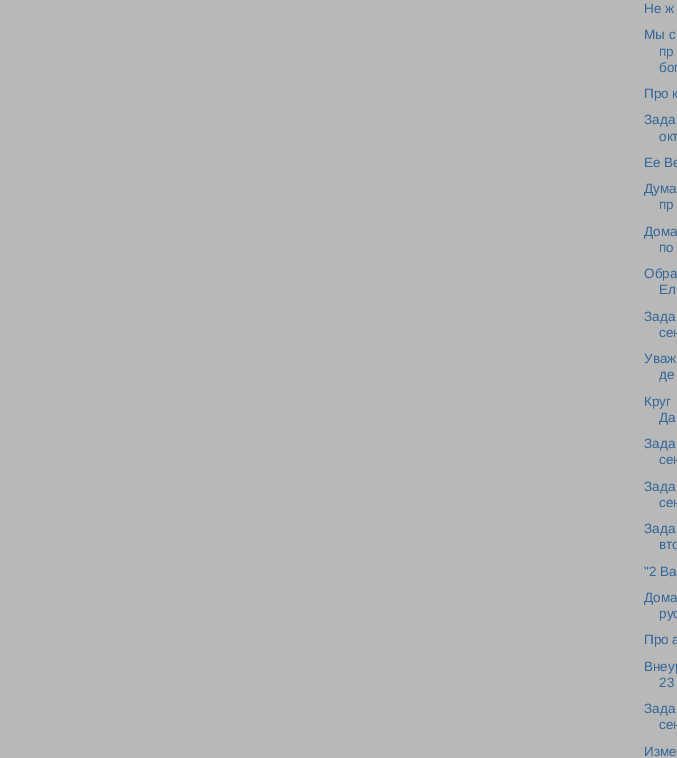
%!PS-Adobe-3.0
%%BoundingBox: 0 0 677 758
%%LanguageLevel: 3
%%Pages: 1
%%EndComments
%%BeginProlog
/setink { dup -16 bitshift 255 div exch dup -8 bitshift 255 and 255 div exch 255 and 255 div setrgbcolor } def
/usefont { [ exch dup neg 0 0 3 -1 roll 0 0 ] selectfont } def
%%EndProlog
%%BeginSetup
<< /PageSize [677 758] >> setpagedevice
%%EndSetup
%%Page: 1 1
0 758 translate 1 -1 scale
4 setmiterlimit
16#B8B8B8 setink
0 0 677 758 rectfill
/LiberationSans-Regular 13.5 usefont
16#336699 setink
[
    [(Не ж) 644 13]
    [(Мы с) 644 39]
    [(пр) 659 56]
    [(бог) 659 72]
    [(Про к) 644 98]
    [(Зада) 644 124]
    [(окт) 659 141]
    [(Ее Ве) 644 167]
    [(Дума) 644 193]
    [(пр) 659 209]
    [(Дома) 644 236]
    [(по) 659 252]
    [(Обра) 644 278]
    [(Ел) 659 294]
    [(Зада) 644 321]
    [(сен) 659 337]
    [(Уваж) 644 363]
    [(де) 659 379]
    [(Круг) 644 406]
    [(Да) 659 422]
    [(Зада) 644 448]
    [(сен) 659 464]
    [(Зада) 644 491]
    [(сен) 659 507]
    [(Зада) 644 533]
    [(вто) 659 549]
    [("2 Ва) 644 576]
    [(Дома) 644 602]
    [(рус) 659 618]
    [(Про а) 644 644]
    [(Внеур) 644 671]
    [(23) 659 687]
    [(Зада) 644 713]
    [(сен) 659 729]
    [(Изме) 644 756]
] { aload pop moveto show } forall
showpage
%%EOF
